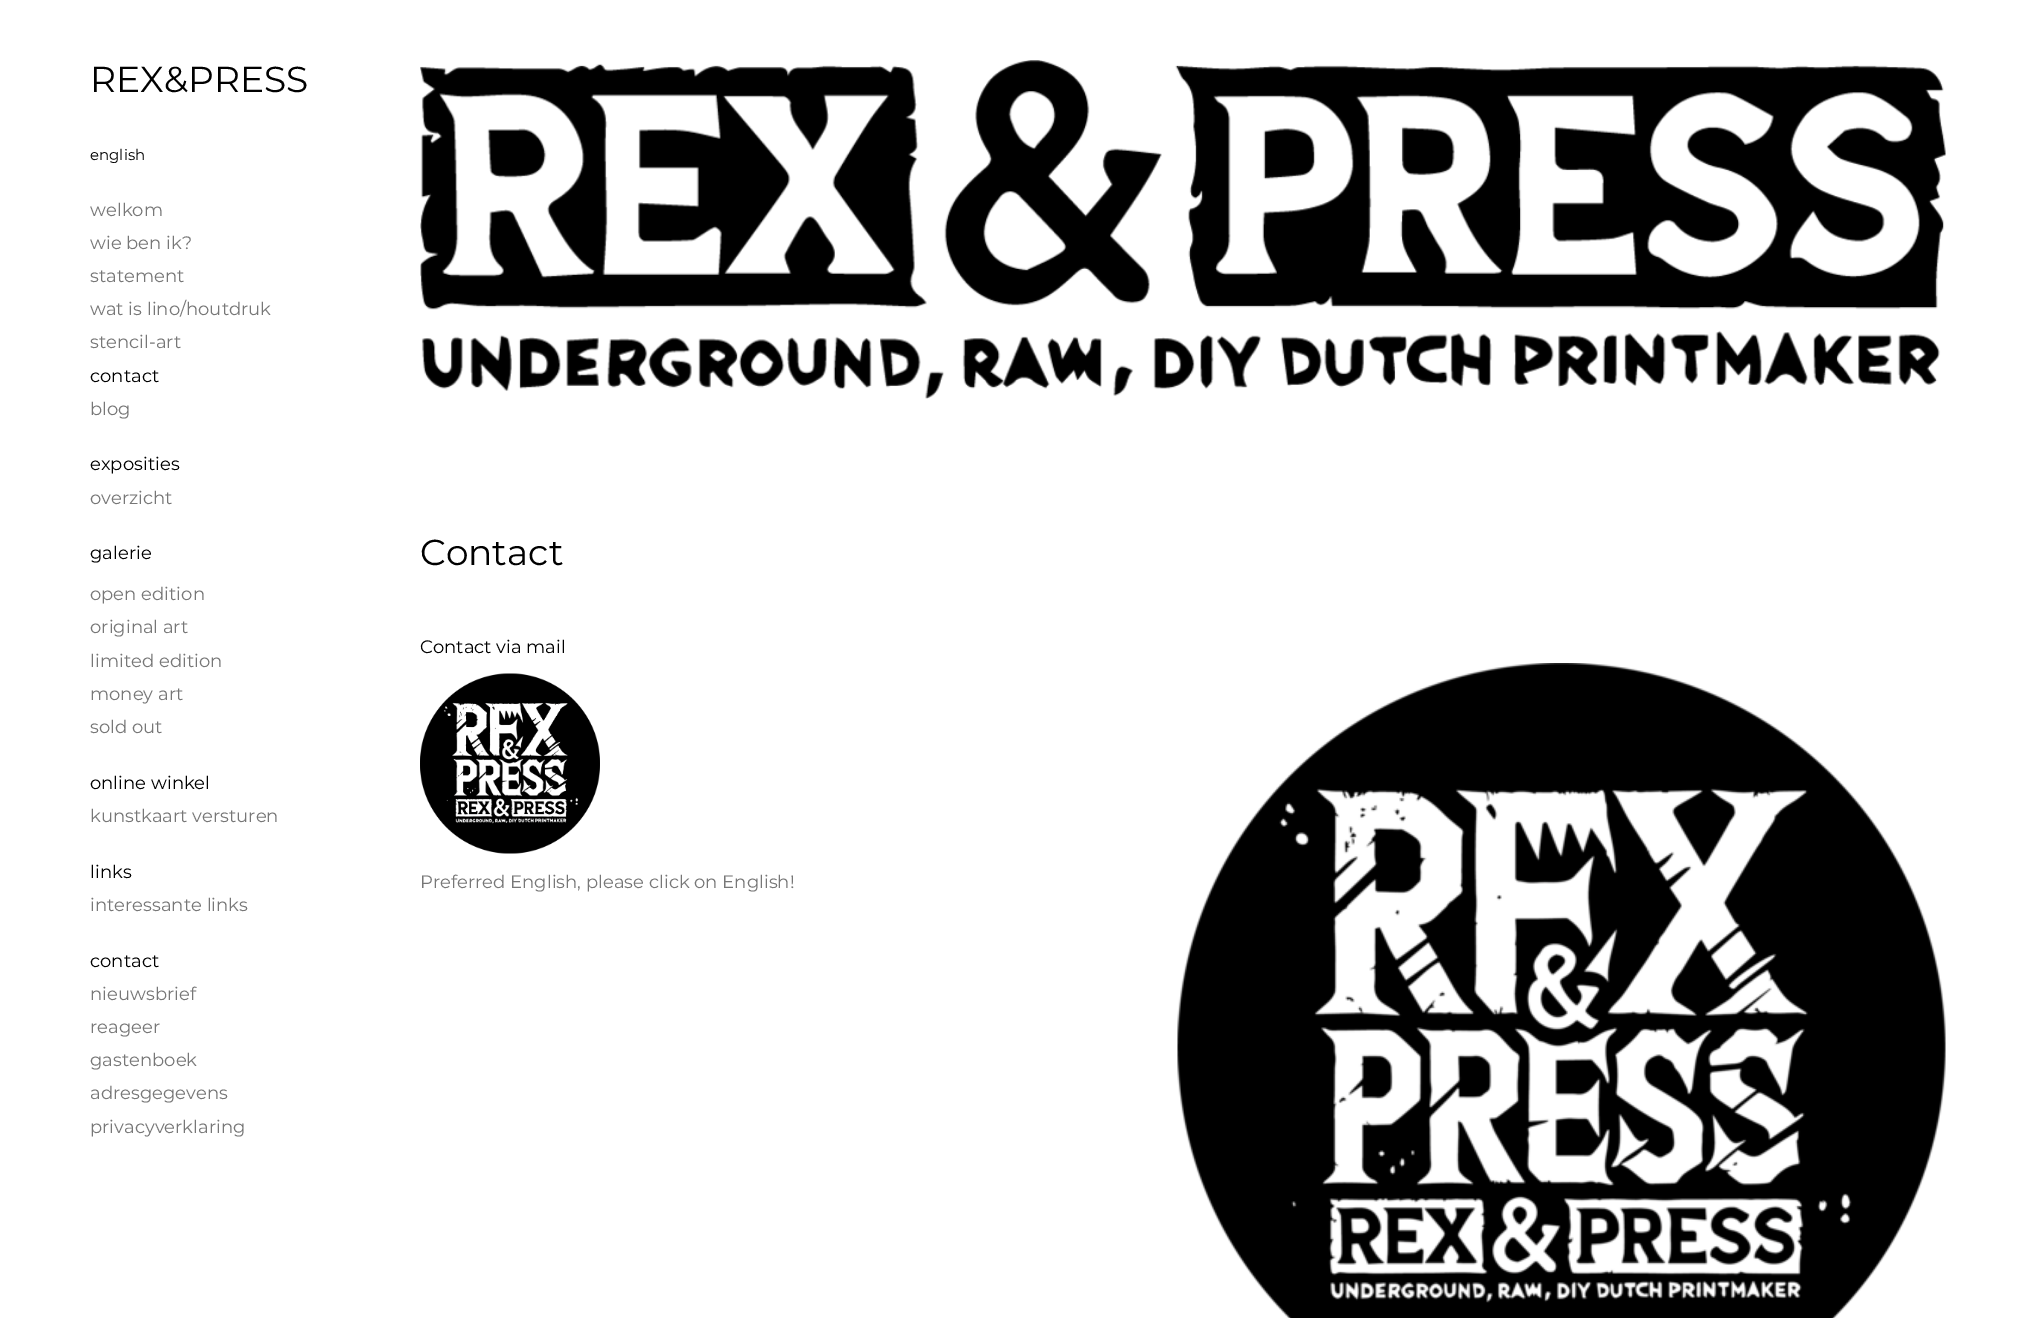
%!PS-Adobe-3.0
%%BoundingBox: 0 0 2035 1318
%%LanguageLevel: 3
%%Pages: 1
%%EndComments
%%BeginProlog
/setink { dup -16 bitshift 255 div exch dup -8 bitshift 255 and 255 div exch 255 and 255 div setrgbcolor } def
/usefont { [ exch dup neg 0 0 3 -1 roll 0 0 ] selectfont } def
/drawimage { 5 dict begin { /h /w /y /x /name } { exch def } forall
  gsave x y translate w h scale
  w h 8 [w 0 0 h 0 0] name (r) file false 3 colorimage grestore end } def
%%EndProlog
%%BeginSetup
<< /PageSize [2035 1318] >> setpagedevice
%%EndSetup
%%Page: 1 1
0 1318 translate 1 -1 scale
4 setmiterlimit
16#FFFFFF setink
0 0 2035 1318 rectfill
(img1.raw) 420 60 1526 339 drawimage
/Montserrat-Thin 36 usefont
16#000000 setink
90 92 moveto (REX&PRESS) show
/Montserrat-Thin 15 usefont
90 160 moveto (english) show
/Montserrat-Thin 18 usefont
16#777777 setink
[
    [(welkom) 90 216]
    [(wie ben ik?) 90 249]
    [(statement) 90 282]
    [(wat is lino/houtdruk) 90 315]
    [(stencil-art) 90 348]
] { aload pop moveto show } forall
16#000000 setink
90 382 moveto (contact) show
16#777777 setink
90 415 moveto (blog) show
16#000000 setink
90 470 moveto (exposities) show
16#777777 setink
90 504 moveto (overzicht) show
16#000000 setink
90 559 moveto (galerie) show
16#777777 setink
[
    [(open edition) 90 600]
    [(original art) 90 633]
    [(limited edition) 90 667]
    [(money art) 90 700]
    [(sold out) 90 733]
] { aload pop moveto show } forall
16#000000 setink
90 789 moveto (online winkel) show
16#777777 setink
90 822 moveto (kunstkaart versturen) show
16#000000 setink
90 878 moveto (links) show
16#777777 setink
90 911 moveto (interessante links) show
16#000000 setink
90 967 moveto (contact) show
16#777777 setink
[
    [(nieuwsbrief) 90 1000]
    [(reageer) 90 1033]
    [(gastenboek) 90 1066]
    [(adresgegevens) 90 1099]
    [(privacyverklaring) 90 1133]
] { aload pop moveto show } forall
/Montserrat-Thin 36 usefont
16#000000 setink
420 565 moveto (Contact) show
/Montserrat-Thin 18 usefont
420 653 moveto (Contact via mail) show
(img2.raw) 420 673 180 181 drawimage
16#777777 setink
420 888 moveto (Preferred English, please click on English!) show
(img3.raw) 1177 663 769 655 drawimage
showpage
%%EOF
